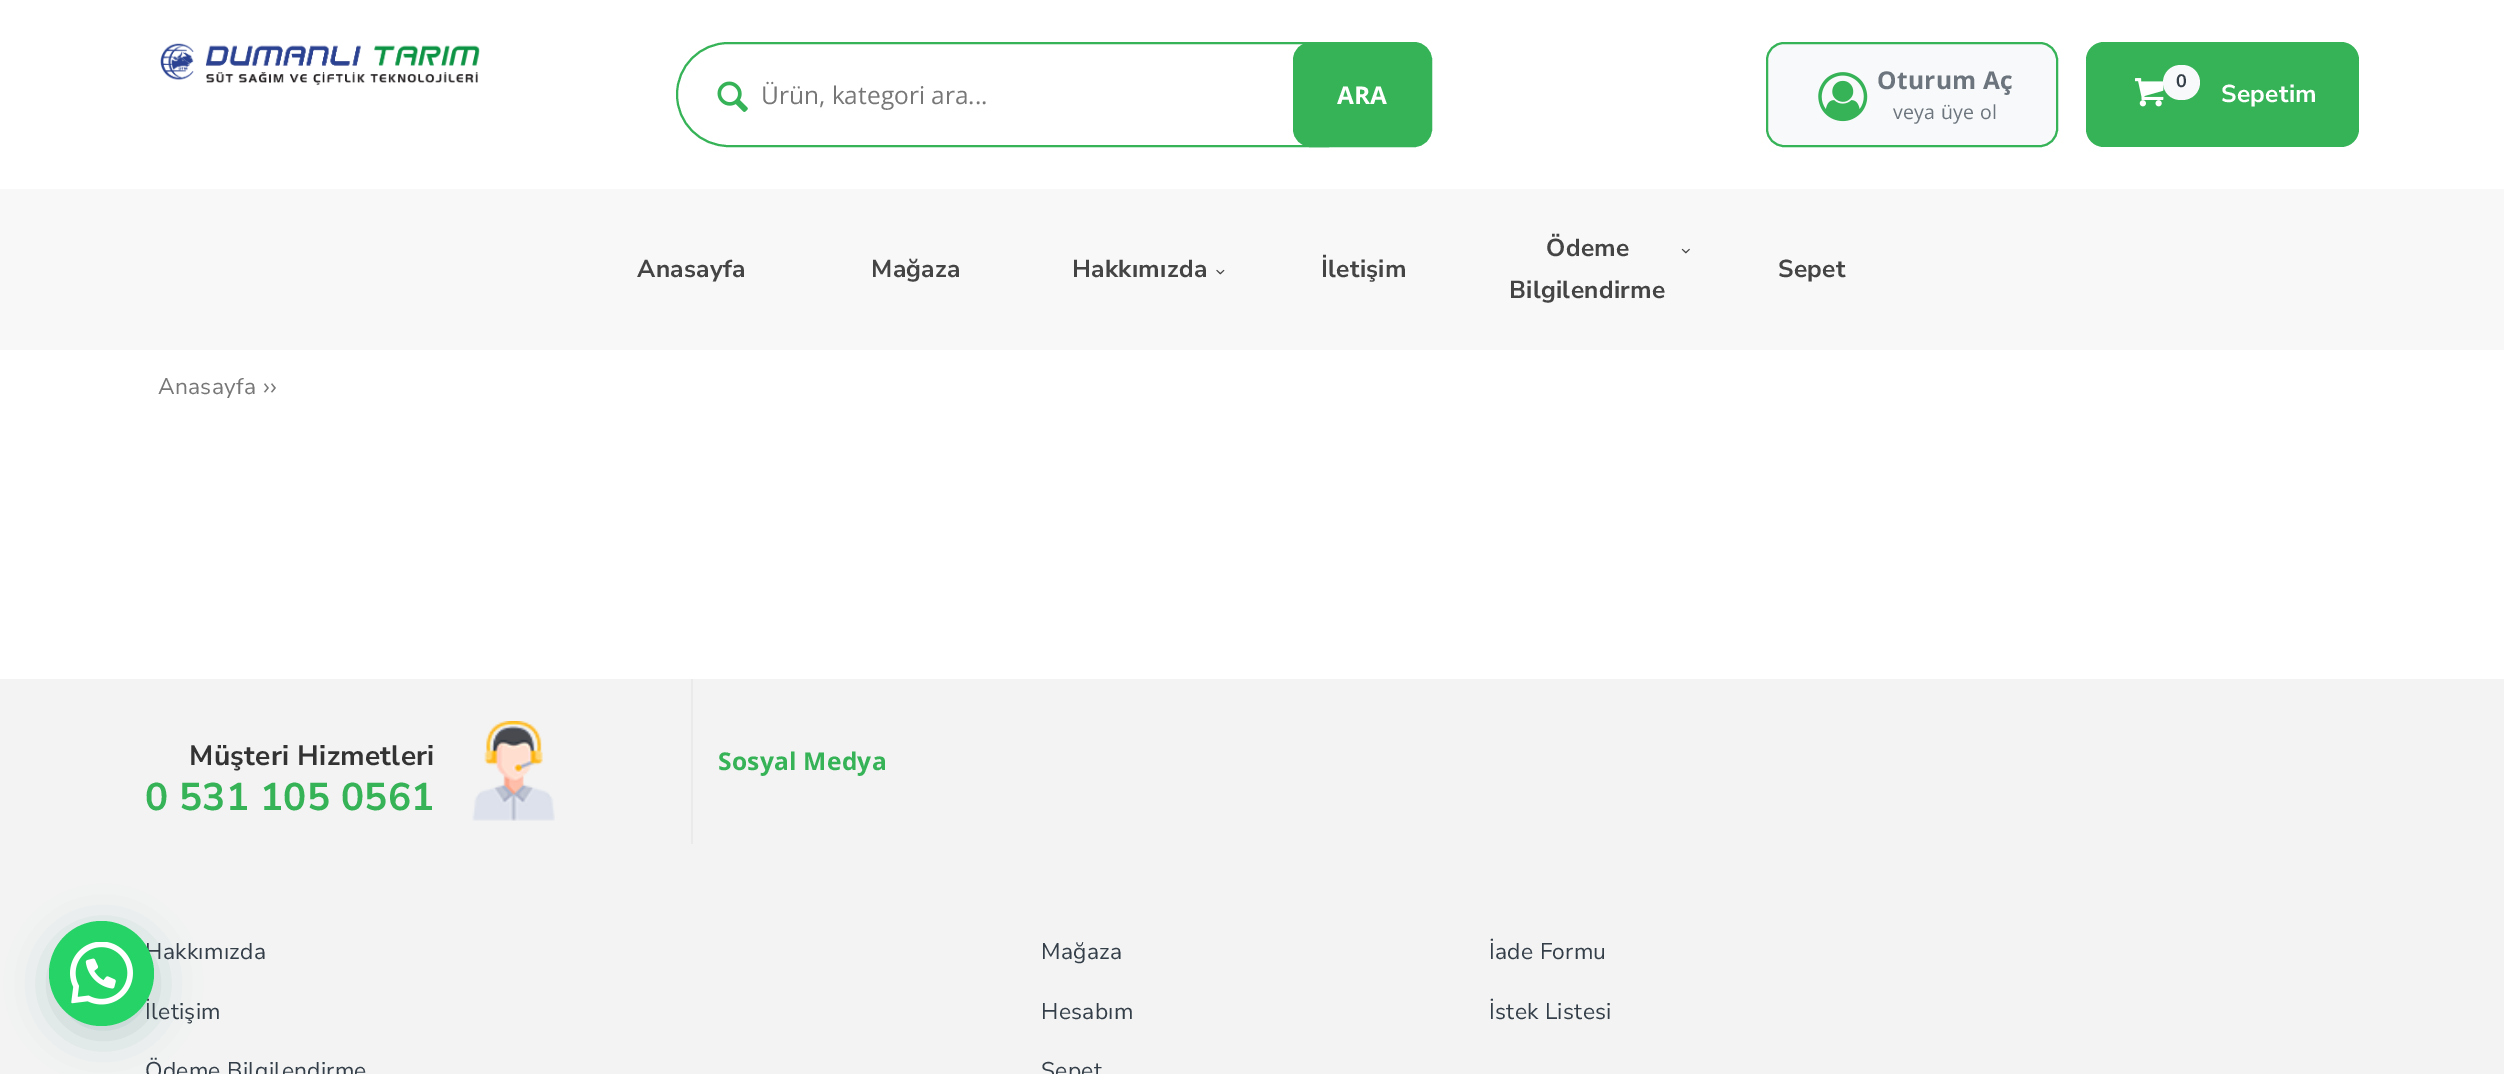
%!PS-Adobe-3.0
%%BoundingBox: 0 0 2504 1074
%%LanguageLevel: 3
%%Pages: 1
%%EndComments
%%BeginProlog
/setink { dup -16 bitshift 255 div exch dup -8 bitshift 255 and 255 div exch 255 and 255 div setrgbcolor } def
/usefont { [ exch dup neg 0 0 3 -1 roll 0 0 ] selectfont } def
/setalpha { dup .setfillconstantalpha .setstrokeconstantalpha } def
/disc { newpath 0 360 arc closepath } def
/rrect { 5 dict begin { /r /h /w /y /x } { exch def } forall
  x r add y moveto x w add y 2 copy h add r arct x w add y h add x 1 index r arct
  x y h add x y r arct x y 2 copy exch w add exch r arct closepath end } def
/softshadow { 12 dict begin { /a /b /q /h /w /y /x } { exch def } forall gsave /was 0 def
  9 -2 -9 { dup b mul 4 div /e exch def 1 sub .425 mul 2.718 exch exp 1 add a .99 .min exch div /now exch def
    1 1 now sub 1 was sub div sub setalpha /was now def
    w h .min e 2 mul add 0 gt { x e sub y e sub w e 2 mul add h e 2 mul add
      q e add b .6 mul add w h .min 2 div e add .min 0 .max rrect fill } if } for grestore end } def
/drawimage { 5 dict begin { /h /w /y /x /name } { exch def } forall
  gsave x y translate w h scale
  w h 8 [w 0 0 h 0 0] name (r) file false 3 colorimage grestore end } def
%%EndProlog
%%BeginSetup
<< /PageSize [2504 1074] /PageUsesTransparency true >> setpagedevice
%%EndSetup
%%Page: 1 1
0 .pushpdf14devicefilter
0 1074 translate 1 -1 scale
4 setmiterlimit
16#FFFFFF setink
0 0 2504 1074 rectfill
(img1.raw) 160 43 320 43 drawimage
16#36B257 setink
2 setlinewidth
677 43 701 103 51.5 rrect stroke
(img2.raw) 717 81 31 31 drawimage
/OpenSans-Regular 24.5 usefont
16#777777 setink
761 104 moveto (Ürün, kategori ara...) show
16#36B257 setink
1294 43 137 103 17 rrect gsave fill grestore
stroke
/OpenSans-Bold 24.5 usefont
16#FFFFFF setink
1337 104 moveto (ARA) show
16#F8F9FA setink
1767 43 290 103 17 rrect gsave fill grestore
16#36B257 setink
stroke
(img3.raw) 1818 72 50 50 drawimage
16#6C757D setink
1877 89 moveto 0.3 0 (Oturum Aç) ashow
/OpenSans-Regular 19.5 usefont
1893 119 moveto 0.3 0 (veya üye ol) ashow
16#36B257 setink
2086 42 273 105 18 rrect fill
(img4.raw) 2135 78 29 29 drawimage
16#F8F9FA setink
2163 65 37 35 17.5 rrect fill
/NunitoSans-Bold 18 usefont
16#333E48 setink
2176 87 moveto 0.3 0 (0) ashow
/NunitoSans-Bold 24.5 usefont
16#FFFFFF setink
2221 102 moveto 0.3 0 (Sepetim) ashow
16#F8F8F8 setink
0 189 2504 161 rectfill
16#444444 setink
637 277 moveto 0.3 0 (Anasayfa) ashow
871 277 moveto 0.3 0 (Mağaza) ashow
1072 277 moveto 0.3 0 (Hakkımızda) ashow
(img5.raw) 1216 269 9 6 drawimage
1321 277 moveto 0.3 0 (İletişim) ashow
1546 256 moveto 0.3 0 (Ödeme) ashow
(img6.raw) 1681 248 9 6 drawimage
1509 298 moveto 0.3 0 (Bilgilendirme) ashow
1778 277 moveto 0.3 0 (Sepet) ashow
/NunitoSans-Regular 22.75 usefont
16#777777 setink
158 394 moveto 0.3 0 (Anasayfa) ashow
/OpenSans-Regular 22.75 usefont
263 394 moveto 0.3 0 (››) ashow
16#F3F3F3 setink
0 679 2504 395 rectfill
16#075E54 setink
51 931 105 105 52.5 21 0.24 softshadow
/NunitoSans-Regular 22.75 usefont
16#333E48 setink
145 959 moveto 0.3 0 (Hakkımızda) ashow
145 1019 moveto 0.3 0 (İletişim) ashow
16#25D366 setink
101.5 973.5 52.5 disc fill
(img7.raw) 70 942 63 63 drawimage
16#EAEAEA setink
691 679 2 165 rectfill
/NunitoSans-Bold 28 usefont
16#333333 setink
189 765 moveto 0.3 0 (Müşteri Hizmetleri) ashow
/NunitoSans-Bold 38.5 usefont
16#36B257 setink
145 810 moveto 0.3 0 (0 531 105 0561) ashow
(img8.raw) 472 721 83 100 drawimage
/OpenSans-Bold 24.5 usefont
718 770 moveto 0.3 0 (Sosyal Medya) ashow
/NunitoSans-Regular 22.75 usefont
16#333E48 setink
145 1078 moveto 0.3 0 (Ödeme Bilgilendirme) ashow
1041 959 moveto 0.3 0 (Mağaza) ashow
1041 1019 moveto 0.3 0 (Hesabım) ashow
1041 1078 moveto 0.3 0 (Sepet) ashow
1489 959 moveto 0.3 0 (İade Formu) ashow
1489 1019 moveto 0.3 0 (İstek Listesi) ashow
.poppdf14devicefilter showpage
%%EOF
